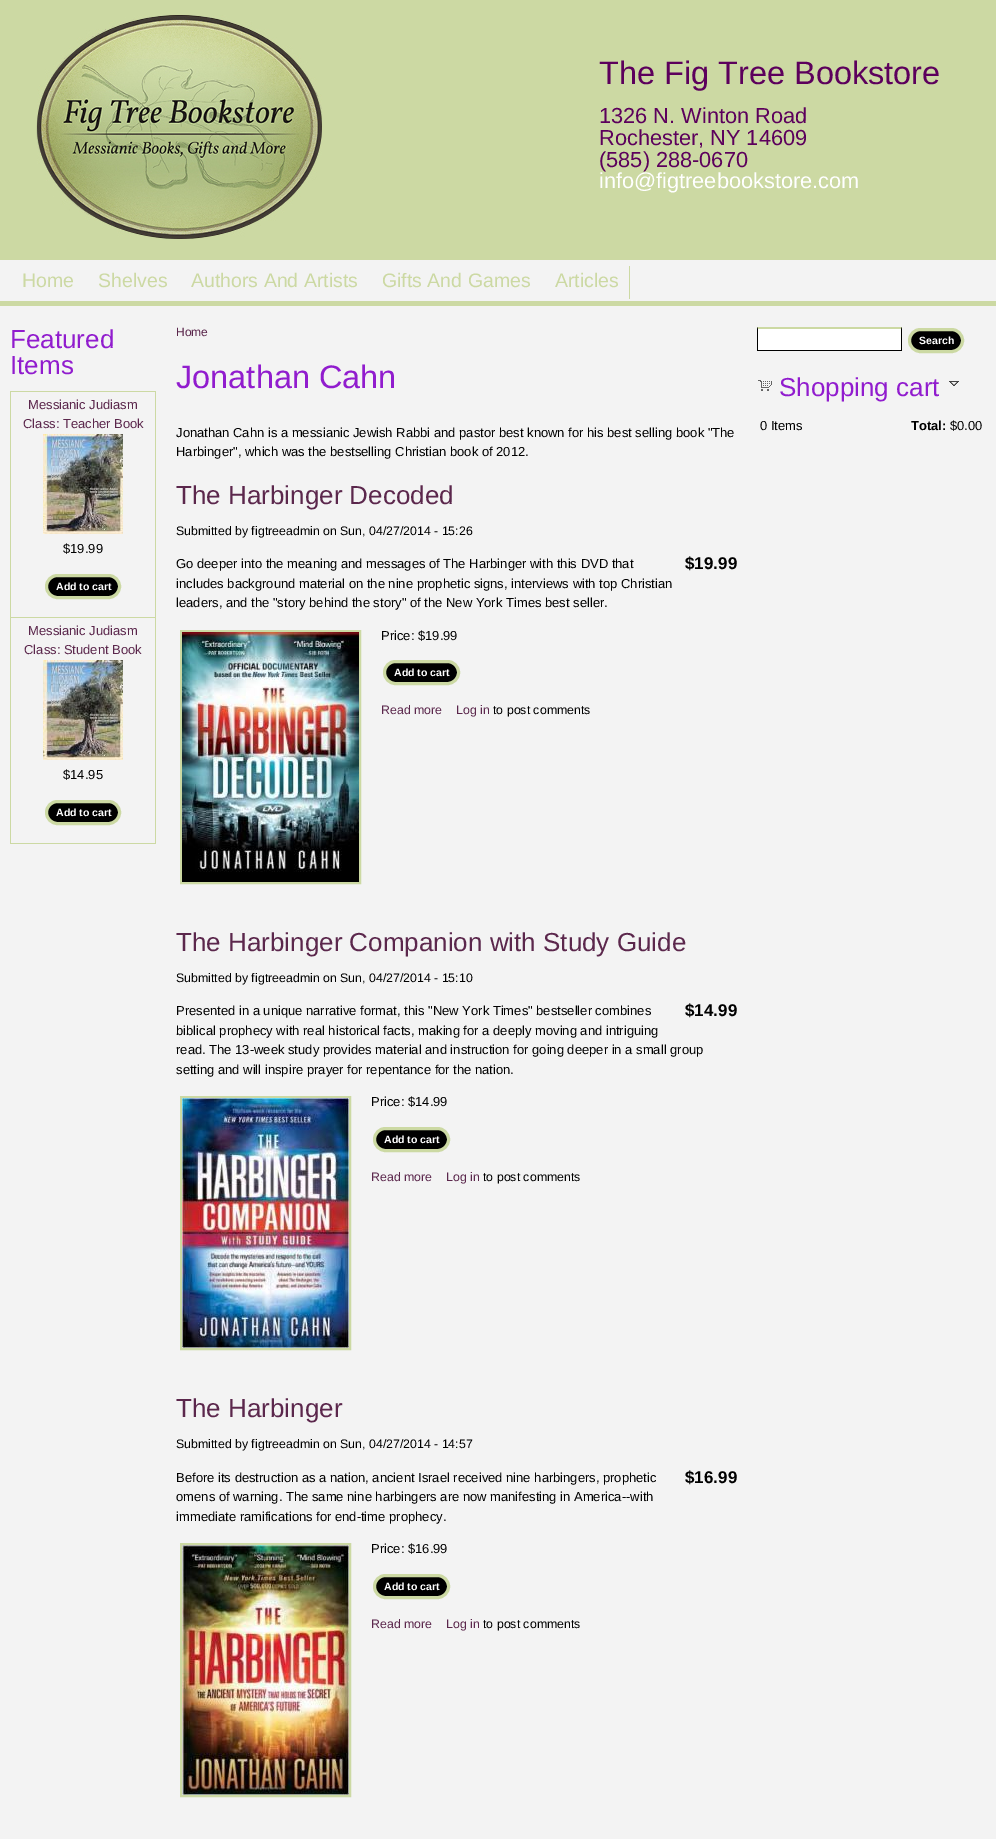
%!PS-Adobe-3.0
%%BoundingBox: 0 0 996 1839
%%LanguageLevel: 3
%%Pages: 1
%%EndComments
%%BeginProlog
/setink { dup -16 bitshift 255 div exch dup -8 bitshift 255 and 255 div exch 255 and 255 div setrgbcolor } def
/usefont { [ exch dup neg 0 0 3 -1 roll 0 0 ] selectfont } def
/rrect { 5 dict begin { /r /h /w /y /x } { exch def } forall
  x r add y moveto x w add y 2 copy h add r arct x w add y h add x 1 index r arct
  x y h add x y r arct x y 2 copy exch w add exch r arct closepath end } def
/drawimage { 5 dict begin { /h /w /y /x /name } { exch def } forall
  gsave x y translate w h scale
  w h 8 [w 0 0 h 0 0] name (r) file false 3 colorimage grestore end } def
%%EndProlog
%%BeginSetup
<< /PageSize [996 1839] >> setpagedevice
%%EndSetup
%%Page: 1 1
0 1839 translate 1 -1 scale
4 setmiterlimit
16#F3F3F3 setink
0 0 996 1839 rectfill
16#CCD9A3 setink
0 0 996 260 rectfill
(img1.raw) 36 15 286 224 drawimage
/LiberationSans-Regular 32.5 usefont
16#5C005C setink
599 84 moveto (The Fig Tree Bookstore) show
/LiberationSans-Regular 21.75 usefont
[
    [(1326 N. Winton Road) 599 123]
    [(Rochester, NY 14609) 599 145]
    [(\(585\) 288-0670) 599 167]
] { aload pop moveto show } forall
16#FFFFFF setink
599 188 moveto (info@figtreebookstore.com) show
16#CCD9A3 setink
0 301 996 5 rectfill
/LiberationSans-Regular 19.5 usefont
[
    [(Home) 22 287]
    [(Shelves) 98 287]
    [(Authors And Artists) 191 287]
    [(Gifts And Games) 382 287]
] { aload pop moveto show } forall
629 266 1 33 rectfill
555 287 moveto (Articles) show
/LiberationSans-Regular 26 usefont
16#911CCE setink
10 348 moveto (Featured) show
10 374 moveto (Items) show
[
    [10 391 146 1 16#CCD9A3]
    [10 617 146 1 16#CCD9A3]
    [155 617 1 227 16#CCD9A3]
    [155 391 1 227 16#CCD9A3]
    [10 843 146 1 16#CCD9A3]
    [10 617 1 227 16#CCD9A3]
    [10 391 1 227 16#CCD9A3]
] { aload pop setink rectfill } forall
/LiberationSans-Regular 13 usefont
16#5B274C setink
28 409 moveto (Messianic Judiasm) show
23 428 moveto (Class: Teacher Book) show
(img2.raw) 43 434 80 100 drawimage
16#000000 setink
63 553 moveto ($19.99) show
46.5 575.5 73 22 11 rrect gsave fill grestore
16#CCD9A3 setink
3 setlinewidth
stroke
/LiberationSans-Bold 10.5 usefont
16#FFFFFF setink
56 590 moveto (Add to cart) show
/LiberationSans-Regular 13 usefont
16#5B274C setink
28 635 moveto (Messianic Judiasm) show
24 654 moveto (Class: Student Book) show
(img3.raw) 43 660 80 100 drawimage
16#000000 setink
63 779 moveto ($14.95) show
46.5 801.5 73 22 11 rrect gsave fill grestore
16#CCD9A3 setink
stroke
/LiberationSans-Bold 10.5 usefont
16#FFFFFF setink
56 816 moveto (Add to cart) show
/LiberationSans-Regular 12 usefont
16#5B274C setink
176 336 moveto (Home) show
/LiberationSans-Regular 32.5 usefont
16#911CCE setink
176 388 moveto (Jonathan Cahn) show
/LiberationSans-Regular 13 usefont
16#000000 setink
176 437 moveto (Jonathan Cahn is a messianic Jewish Rabbi and pastor best known for his best selling book "The) show
176 456 moveto (Harbinger", which was the bestselling Christian book of 2012.) show
/LiberationSans-Regular 26 usefont
16#5B274C setink
176 504 moveto (The Harbinger Decoded) show
/LiberationSans-Regular 12.35 usefont
16#000000 setink
176 535 moveto (Submitted by figtreeadmin on Sun, 04/27/2014 - 15:26) show
/LiberationSans-Regular 13 usefont
[
    [(Go deeper into the meaning and messages of The Harbinger with this DVD that) 176 568]
    [(includes background material on the nine prophetic signs, interviews with top Christian) 176 588]
    [(leaders, and the "story behind the story" of the New York Times best seller.) 176 607]
] { aload pop moveto show } forall
/LiberationSans-Bold 17 usefont
685 569 moveto ($19.99) show
16#CCD9A3 setink
2 setlinewidth
181 631 179 252 rectstroke
(img4.raw) 182 632 177 250 drawimage
/LiberationSans-Regular 13 usefont
16#000000 setink
381 640 moveto (Price: $19.99) show
384.5 661.5 74 22 11 rrect gsave fill grestore
16#CCD9A3 setink
3 setlinewidth
stroke
/LiberationSans-Bold 10.5 usefont
16#FFFFFF setink
394 676 moveto (Add to cart) show
/LiberationSans-Regular 12.35 usefont
16#5B274C setink
381 714 moveto (Read more) show
456 714 moveto (Log in) show
16#000000 setink
493 714 moveto (to post comments) show
/LiberationSans-Regular 26 usefont
16#5B274C setink
176 951 moveto (The Harbinger Companion with Study Guide) show
/LiberationSans-Regular 12.35 usefont
16#000000 setink
176 982 moveto (Submitted by figtreeadmin on Sun, 04/27/2014 - 15:10) show
/LiberationSans-Regular 13 usefont
[
    [(Presented in a unique narrative format, this "New York Times" bestseller combines) 176 1015]
    [(biblical prophecy with real historical facts, making for a deeply moving and intriguing) 176 1035]
    [(read. The 13-week study provides material and instruction for going deeper in a small group) 176 1054]
    [(setting and will inspire prayer for repentance for the nation.) 176 1074]
] { aload pop moveto show } forall
/LiberationSans-Bold 17 usefont
685 1016 moveto ($14.99) show
16#CCD9A3 setink
2 setlinewidth
181 1097 169 252 rectstroke
(img5.raw) 182 1098 167 250 drawimage
/LiberationSans-Regular 13 usefont
16#000000 setink
371 1106 moveto (Price: $14.99) show
374.5 1128.5 74 22 11 rrect gsave fill grestore
16#CCD9A3 setink
3 setlinewidth
stroke
/LiberationSans-Bold 10.5 usefont
16#FFFFFF setink
384 1143 moveto (Add to cart) show
/LiberationSans-Regular 12.35 usefont
16#5B274C setink
371 1181 moveto (Read more) show
446 1181 moveto (Log in) show
16#000000 setink
483 1181 moveto (to post comments) show
/LiberationSans-Regular 26 usefont
16#5B274C setink
176 1417 moveto (The Harbinger) show
/LiberationSans-Regular 12.35 usefont
16#000000 setink
176 1448 moveto (Submitted by figtreeadmin on Sun, 04/27/2014 - 14:57) show
/LiberationSans-Regular 13 usefont
[
    [(Before its destruction as a nation, ancient Israel received nine harbingers, prophetic) 176 1482]
    [(omens of warning. The same nine harbingers are now manifesting in America--with) 176 1501]
    [(immediate ramifications for end-time prophecy.) 176 1521]
] { aload pop moveto show } forall
/LiberationSans-Bold 17 usefont
685 1483 moveto ($16.99) show
16#CCD9A3 setink
2 setlinewidth
181 1544 169 252 rectstroke
(img6.raw) 182 1545 167 250 drawimage
/LiberationSans-Regular 13 usefont
16#000000 setink
371 1553 moveto (Price: $16.99) show
374.5 1575.5 74 22 11 rrect gsave fill grestore
16#CCD9A3 setink
3 setlinewidth
stroke
/LiberationSans-Bold 10.5 usefont
16#FFFFFF setink
384 1590 moveto (Add to cart) show
/LiberationSans-Regular 12.35 usefont
16#5B274C setink
371 1628 moveto (Read more) show
446 1628 moveto (Log in) show
16#000000 setink
483 1628 moveto (to post comments) show
16#FFFFFF setink
758 329 143 21 rectfill
16#CCD9A3 setink
757 327 moveto 902 327 lineto 901 329 lineto 758 329 lineto closepath fill
16#000000 setink
902 327 moveto 902 351 lineto 901 350 lineto 901 329 lineto closepath fill
757 350 145 1 rectfill
757 351 moveto 757 327 lineto 758 329 lineto 758 350 lineto closepath fill
909.5 329.5 53 22 11 rrect gsave fill grestore
16#CCD9A3 setink
stroke
/LiberationSans-Bold 10.5 usefont
16#FFFFFF setink
919 344 moveto (Search) show
(img7.raw) 758 380 14 11 drawimage
/LiberationSans-Regular 26 usefont
16#911CCE setink
779 396 moveto (Shopping cart) show
(img8.raw) 949 381 10 5 drawimage
/LiberationSans-Regular 13 usefont
16#000000 setink
760 430 moveto (0 Items) show
/LiberationSans-Bold 13 usefont
911 430 moveto (Total:) show
/LiberationSans-Regular 13 usefont
950 430 moveto ($0.00) show
showpage
%%EOF
